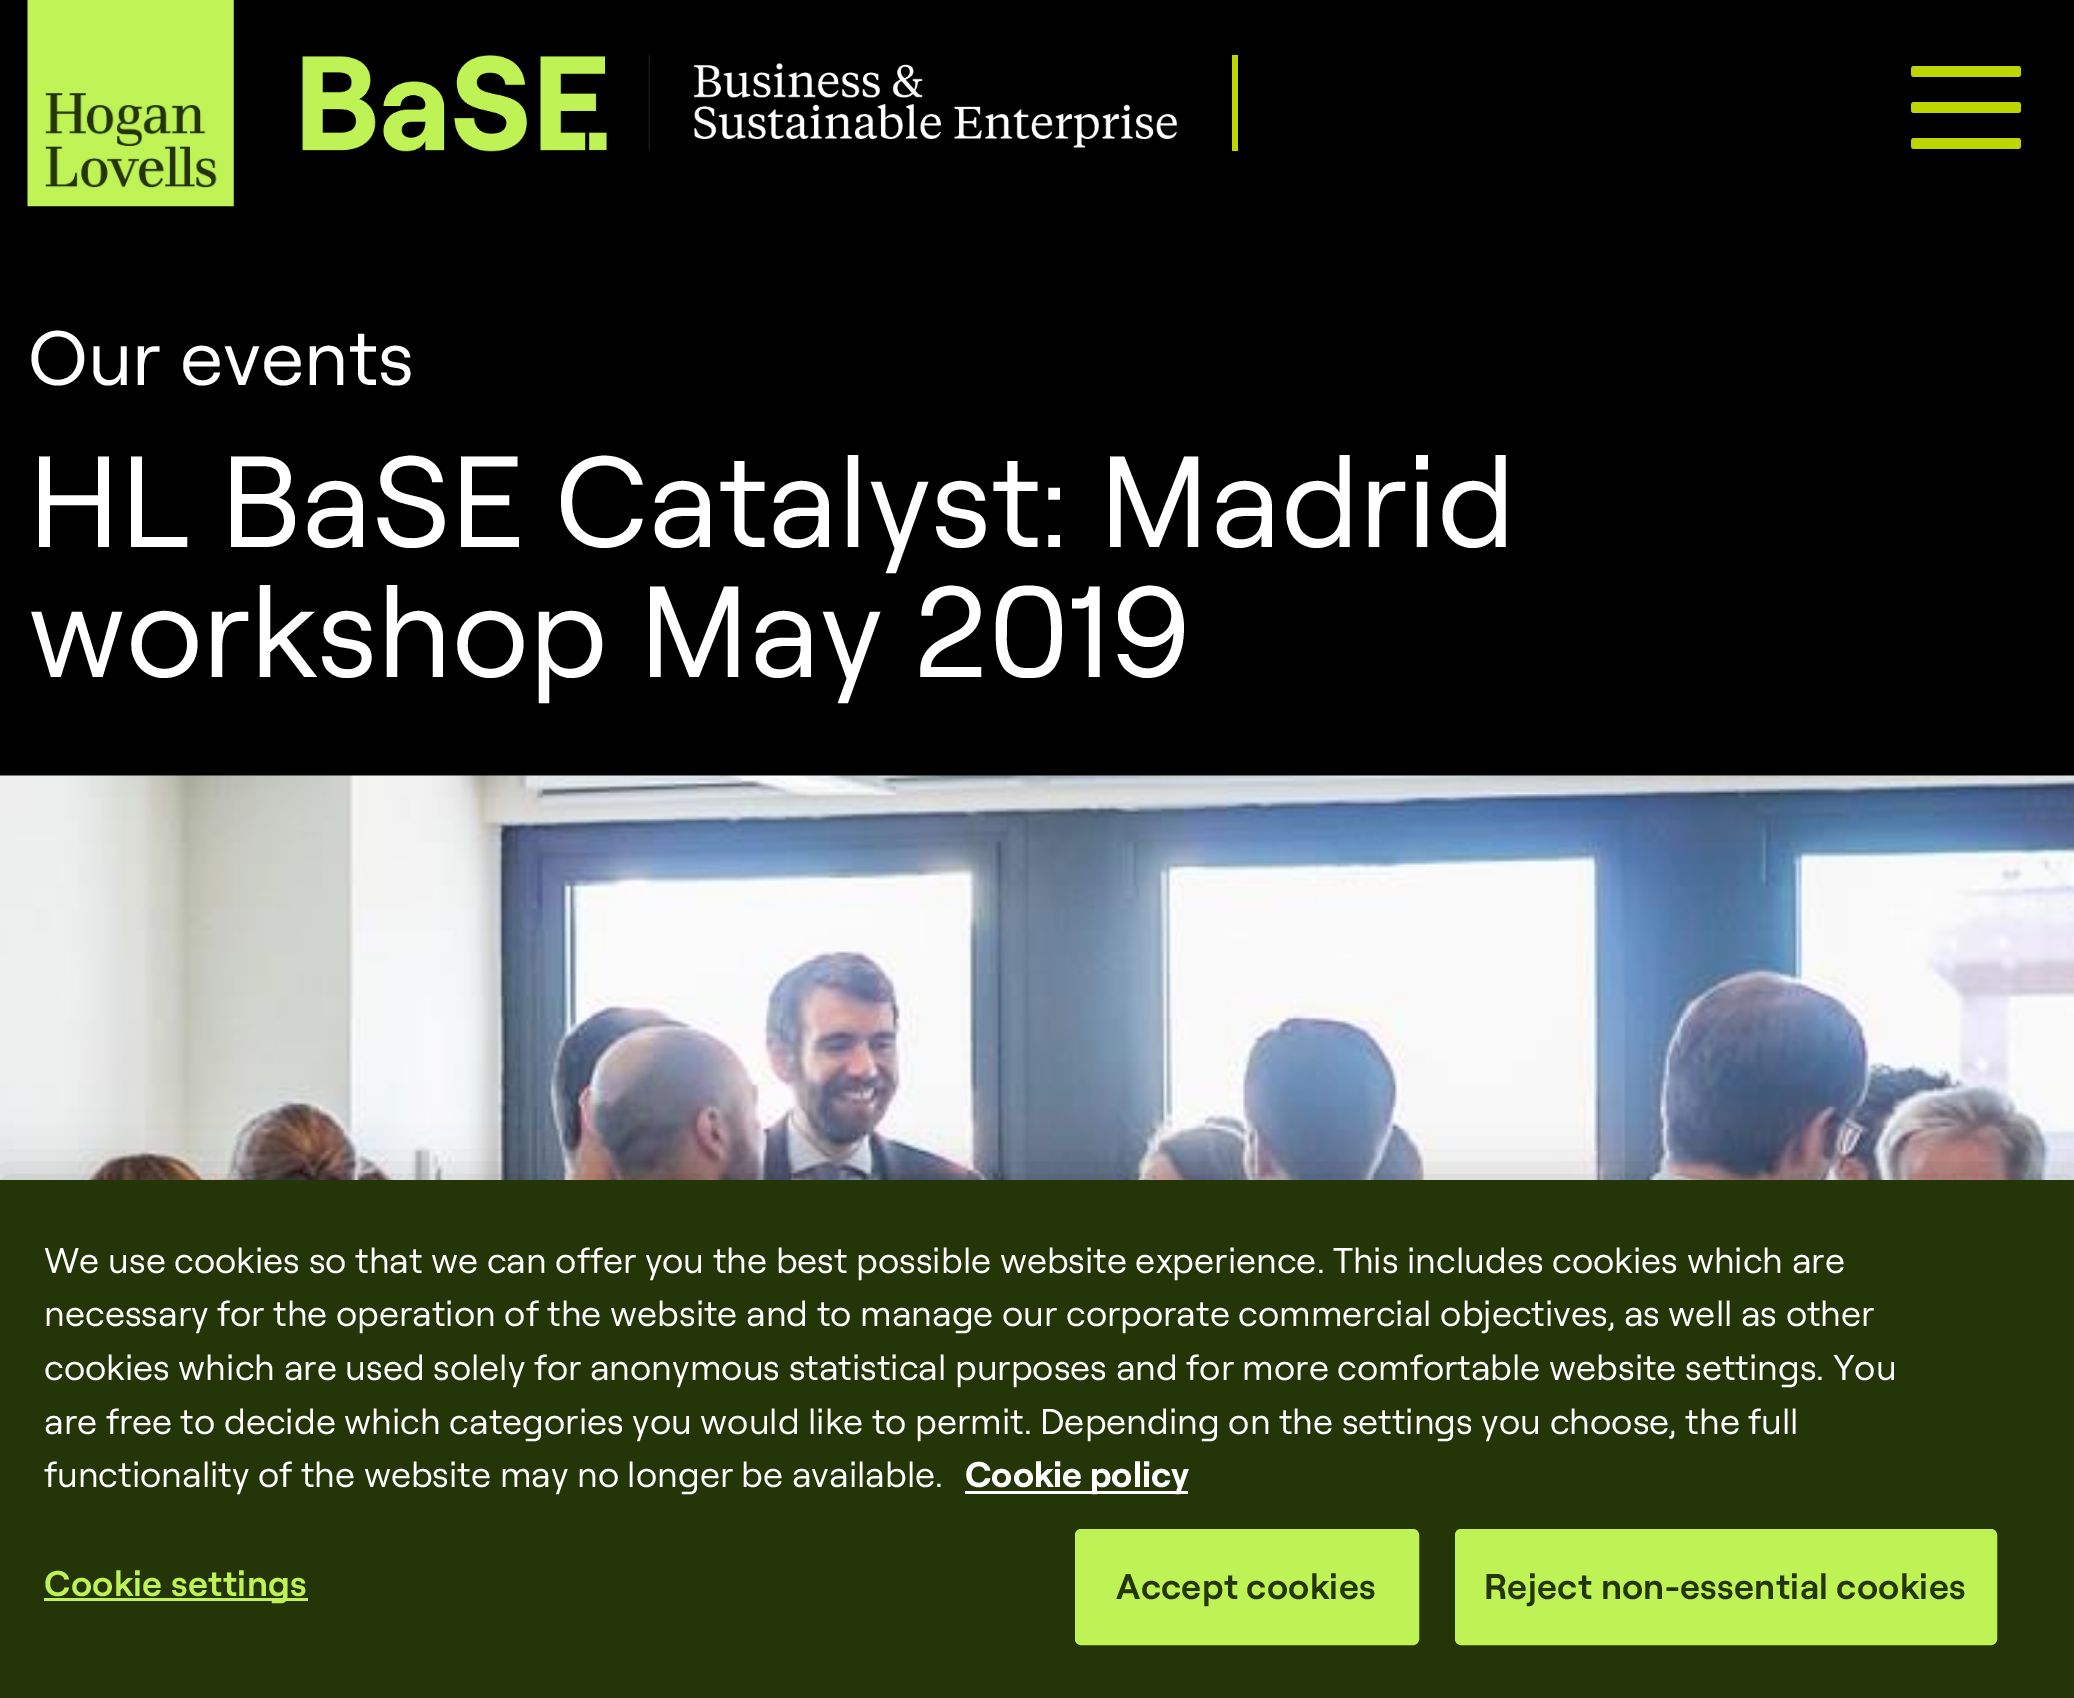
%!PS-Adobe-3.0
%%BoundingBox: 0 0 2074 1698
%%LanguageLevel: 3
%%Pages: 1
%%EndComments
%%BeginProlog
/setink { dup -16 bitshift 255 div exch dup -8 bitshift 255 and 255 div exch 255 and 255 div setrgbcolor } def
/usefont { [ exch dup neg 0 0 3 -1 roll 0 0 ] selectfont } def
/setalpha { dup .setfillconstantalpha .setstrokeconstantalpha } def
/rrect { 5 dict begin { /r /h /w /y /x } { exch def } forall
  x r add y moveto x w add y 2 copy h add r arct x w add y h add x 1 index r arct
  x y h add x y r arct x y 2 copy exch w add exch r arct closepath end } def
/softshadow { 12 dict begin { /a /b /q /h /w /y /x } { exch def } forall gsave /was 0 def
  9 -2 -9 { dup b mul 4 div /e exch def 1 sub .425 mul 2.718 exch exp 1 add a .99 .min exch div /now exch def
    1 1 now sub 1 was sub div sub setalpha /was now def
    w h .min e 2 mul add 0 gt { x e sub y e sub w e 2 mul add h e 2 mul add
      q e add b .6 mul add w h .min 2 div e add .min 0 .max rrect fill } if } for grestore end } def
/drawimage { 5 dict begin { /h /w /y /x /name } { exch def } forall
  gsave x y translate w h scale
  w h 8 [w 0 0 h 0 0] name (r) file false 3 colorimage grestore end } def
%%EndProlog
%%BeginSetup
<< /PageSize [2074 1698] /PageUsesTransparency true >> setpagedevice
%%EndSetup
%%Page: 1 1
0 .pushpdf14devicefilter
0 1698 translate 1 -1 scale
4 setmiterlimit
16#000000 setink
0 0 2074 1698 rectfill
(img1.raw) 27 0 207 207 drawimage
16#BED600 setink
1232 55 6 96 rectfill
(img2.raw) 302 55 875 97 drawimage
1911 66 110 11 3 rrect fill
1911 102 110 11 3 rrect fill
1911 138 110 11 3 rrect fill
/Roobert-Regular 77 usefont
16#FFFFFF setink
28 385 moveto (Our events) show
/Roobert-Regular 129.25 usefont
28 547 moveto (HL BaSE Catalyst: Madrid) show
28 677 moveto (workshop May 2019) show
(img3.raw) 0 775 2074 405 drawimage
16#000000 setink
0 1180 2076 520 0 25 0.2 softshadow
16#243508 setink
0 1180 2074 518 rectfill
/Roobert-Regular 35.77 usefont
16#FFFFFF setink
[
    [(We use cookies so that we can offer you the best possible website experience. This includes cookies which are) 44 1273]
    [(necessary for the operation of the website and to manage our corporate commercial objectives, as well as other) 44 1326]
    [(cookies which are used solely for anonymous statistical purposes and for more comfortable website settings. You) 44 1380]
    [(are free to decide which categories you would like to permit. Depending on the settings you choose, the full) 44 1434]
    [(functionality of the website may no longer be available.) 44 1487]
] { aload pop moveto show } forall
965 1491 223 3 rectfill
/Roobert-Bold 35.77 usefont
965 1487 moveto (Cookie policy) show
16#BFF355 setink
44 1598 264 3 rectfill
/Roobert-SemiBold 35.77 usefont
44 1596 moveto 0.35 0 (Cookie settings) ashow
1076.5 1530.5 341 113 4.5 rrect gsave fill grestore
3 setlinewidth
stroke
16#243508 setink
1116 1599 moveto 0.35 0 (Accept cookies) ashow
16#BFF355 setink
1456.5 1530.5 539 113 4.5 rrect gsave fill grestore
stroke
16#243508 setink
1484 1599 moveto 0.35 0 (Reject non-essential cookies) ashow
.poppdf14devicefilter showpage
%%EOF
